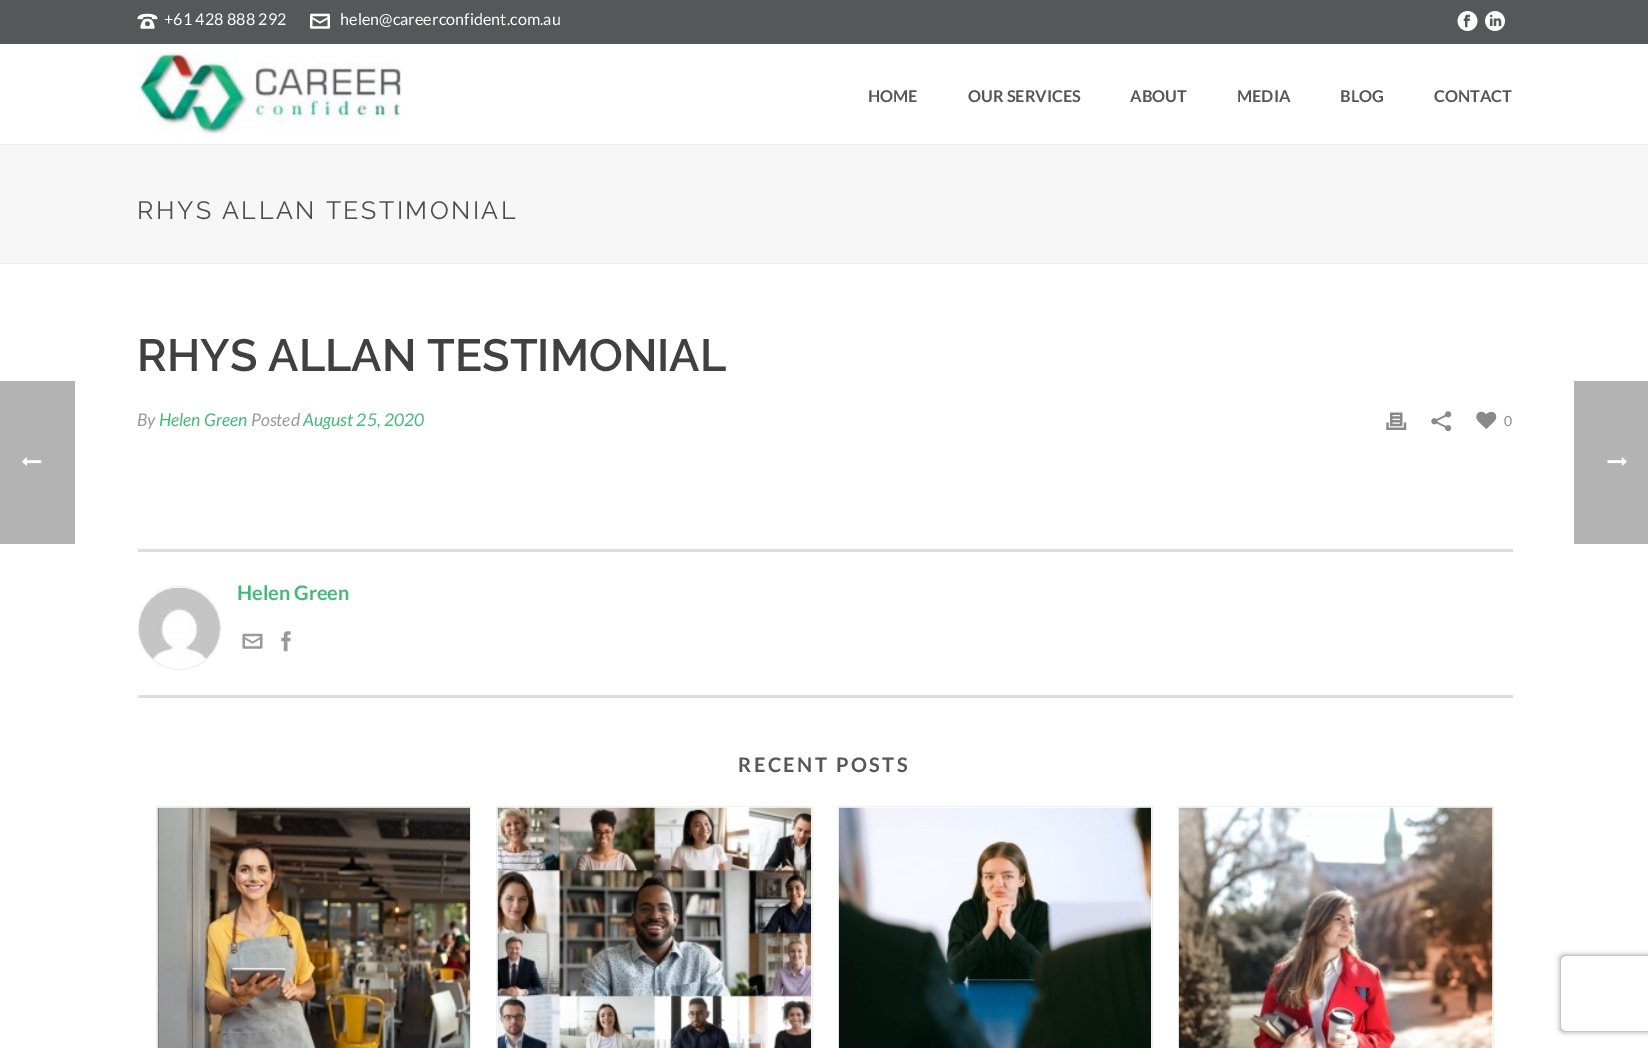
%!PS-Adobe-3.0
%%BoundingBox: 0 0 1648 1048
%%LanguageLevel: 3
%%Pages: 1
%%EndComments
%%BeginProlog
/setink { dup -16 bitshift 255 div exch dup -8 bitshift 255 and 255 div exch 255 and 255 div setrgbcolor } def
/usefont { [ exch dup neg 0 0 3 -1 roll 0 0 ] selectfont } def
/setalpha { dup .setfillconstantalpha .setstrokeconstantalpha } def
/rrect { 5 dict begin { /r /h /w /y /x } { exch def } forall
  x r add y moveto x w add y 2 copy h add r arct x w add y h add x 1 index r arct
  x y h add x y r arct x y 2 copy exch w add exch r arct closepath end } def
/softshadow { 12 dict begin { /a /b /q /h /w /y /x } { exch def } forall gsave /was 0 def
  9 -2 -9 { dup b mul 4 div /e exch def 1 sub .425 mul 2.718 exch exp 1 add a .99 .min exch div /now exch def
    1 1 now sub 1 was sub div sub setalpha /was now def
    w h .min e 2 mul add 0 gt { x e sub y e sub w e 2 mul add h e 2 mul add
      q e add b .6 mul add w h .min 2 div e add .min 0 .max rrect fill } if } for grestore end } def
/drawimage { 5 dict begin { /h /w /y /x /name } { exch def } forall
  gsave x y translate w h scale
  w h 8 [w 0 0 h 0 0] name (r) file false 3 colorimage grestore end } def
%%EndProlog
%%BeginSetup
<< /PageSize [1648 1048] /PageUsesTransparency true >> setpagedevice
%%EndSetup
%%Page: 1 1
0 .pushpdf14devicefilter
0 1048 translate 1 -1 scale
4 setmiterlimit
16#FFFFFF setink
0 0 1648 1048 rectfill
[
    [0 145 1648 118 16#F7F7F7]
    [0 263 1648 1 16#EDEDED]
    [0 0 1648 44 16#565759]
] { aload pop setink rectfill } forall
(img1.raw) 137 13 21 16 drawimage
/Lato-Regular 16.25 usefont
16#FFFFFF setink
164 25 moveto (+61 428 888 292) show
(img2.raw) 310 13 20 16 drawimage
340 25 moveto (helen@careerconfident.com.au) show
(img3.raw) 1457 11 21 20 drawimage
(img4.raw) 1485 11 20 20 drawimage
16#EDEDED setink
0 144 1648 1 rectfill
(img5.raw) 137 51 264 84 drawimage
/Lato-Bold 16.25 usefont
16#565759 setink
[
    [(HOME) 868 102]
    [(OUR SERVICES) 968 102]
    [(ABOUT) 1130 102]
    [(MEDIA) 1237 102]
    [(BLOG) 1340 102]
    [(CONTACT) 1434 102]
] { aload pop moveto show } forall
/Raleway-Regular 25 usefont
16#4D4D4D setink
137 219 moveto 2.5 0 (RHYS ALLAN TESTIMONIAL) ashow
/Raleway-SemiBold 45 usefont
16#404040 setink
137 371 moveto (RHYS ALLAN TESTIMONIAL) show
/Lato-Italic 17.5 usefont
16#999999 setink
137 426 moveto (By) show
16#46B978 setink
159 426 moveto (Helen Green) show
16#999999 setink
251 426 moveto (Posted) show
16#46B978 setink
303 426 moveto (August 25, 2020) show
(img6.raw) 1386 412 21 18 drawimage
(img7.raw) 1431 411 21 21 drawimage
(img8.raw) 1476 411 21 18 drawimage
/Lato-Regular 14 usefont
16#898989 setink
1504 426 moveto (0) show
16#DDDDDD setink
138 549 1375 3 rectfill
138 695 1375 3 rectfill
16#EEEEEE setink
138.5 586.5 82 83 41 rrect stroke
(img9.raw) 139 587 81 72 drawimage
/Lato-Bold 20 usefont
16#46B978 setink
237 600 moveto (Helen Green) show
(img10.raw) 242 633 21 16 drawimage
(img11.raw) 281 631 10 21 drawimage
16#565759 setink
738 772 moveto 2.5 0 (RECENT POSTS) ashow
16#EFEFEF setink
156.5 806.5 314 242 rectstroke
(img12.raw) 157 807 313 241 drawimage
496.5 806.5 316 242 rectstroke
(img13.raw) 497 807 315 241 drawimage
838.5 806.5 314 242 rectstroke
(img14.raw) 838 807 314 241 drawimage
1178.5 806.5 315 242 rectstroke
(img15.raw) 1178 807 315 241 drawimage
16#B3B3B3 setink
0 381 75 163 rectfill
(img16.raw) 22 457 20 9 drawimage
1574 381 74 163 rectfill
(img17.raw) 1607 457 20 9 drawimage
gsave
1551 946 moveto 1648 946 lineto 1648 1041 lineto 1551 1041 lineto closepath 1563.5 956 moveto 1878.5 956 lineto 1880 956 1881 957 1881 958.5 curveto 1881 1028.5 lineto 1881 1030 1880 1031 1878.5 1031 curveto 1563.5 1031 lineto 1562 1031 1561 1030 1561 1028.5 curveto 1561 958.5 lineto 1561 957 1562 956 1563.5 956 curveto closepath eoclip newpath
16#808080 setink
1561 956 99 75 2.5 3 1 softshadow
grestore
.poppdf14devicefilter showpage
%%EOF
